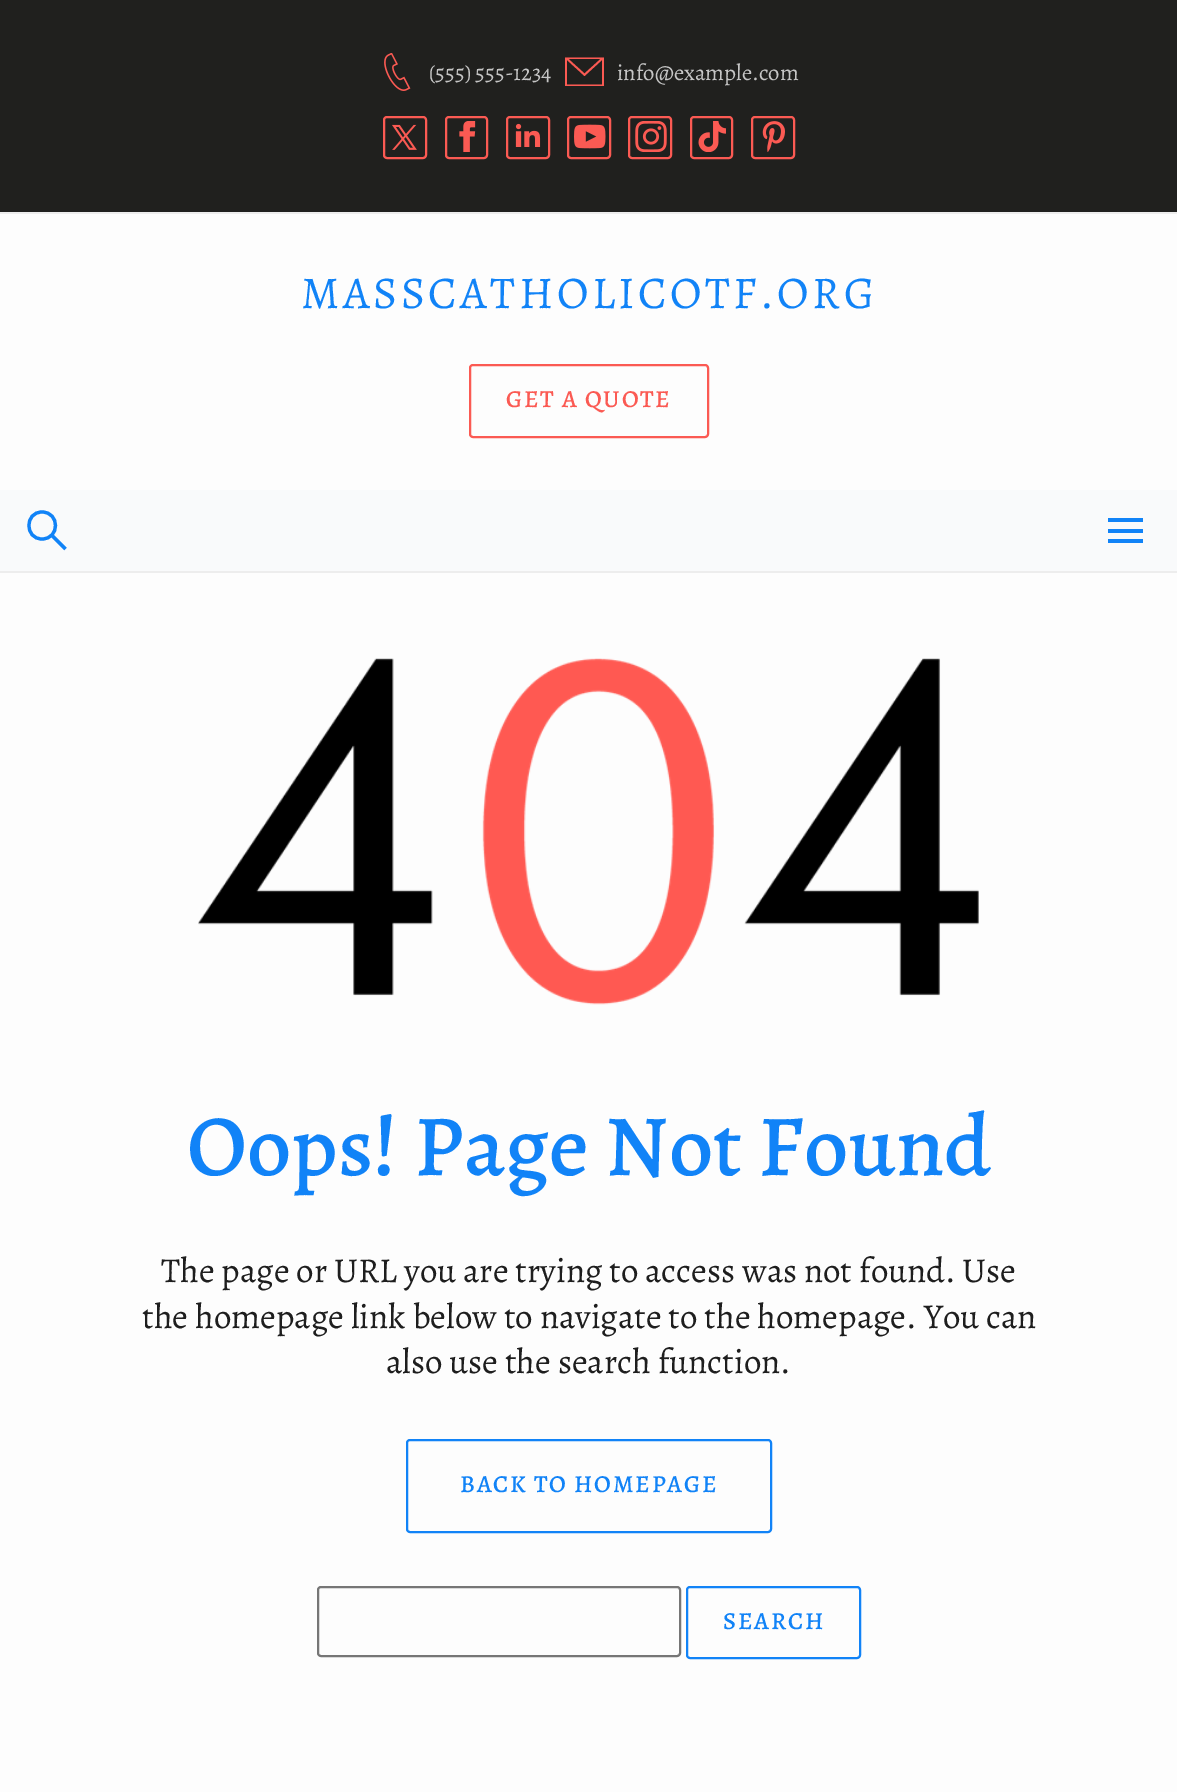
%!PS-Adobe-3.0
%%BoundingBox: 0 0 1177 1792
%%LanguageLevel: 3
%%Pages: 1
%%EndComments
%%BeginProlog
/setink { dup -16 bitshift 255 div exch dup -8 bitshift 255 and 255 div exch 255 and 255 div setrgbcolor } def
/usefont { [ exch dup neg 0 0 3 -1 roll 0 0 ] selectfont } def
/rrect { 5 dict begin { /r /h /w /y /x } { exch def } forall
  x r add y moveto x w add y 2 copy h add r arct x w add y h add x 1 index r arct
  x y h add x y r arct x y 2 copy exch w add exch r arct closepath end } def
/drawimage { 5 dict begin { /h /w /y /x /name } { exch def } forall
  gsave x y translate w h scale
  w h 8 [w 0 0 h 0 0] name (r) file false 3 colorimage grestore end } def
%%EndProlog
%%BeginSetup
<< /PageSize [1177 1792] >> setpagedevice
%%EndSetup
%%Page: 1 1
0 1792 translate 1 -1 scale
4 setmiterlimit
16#FDFDFD setink
0 0 1177 1792 rectfill
16#20201E setink
0 0 1177 212 rectfill
16#EDEDED setink
0 212 1177 2 rectfill
(img1.raw) 384 53 27 38 drawimage
/Alegreya-Regular 22.75 usefont
16#C5C5C5 setink
429 80 moveto (\(555\) 555-1234) show
16#FB5A53 setink
604 86 moveto 565 86 lineto 565 57.5 lineto 604 57.5 lineto closepath 567 60 moveto 567 84.5 lineto 602 84.5 lineto 602 60 lineto 584.5 76 lineto closepath 600.5 59 moveto 568.5 59 lineto 584.5 73.5 lineto closepath fill
16#C5C5C5 setink
617 80 moveto (info@example.com) show
16#FB5A53 setink
2 setlinewidth
384 117 42 41 3 rrect stroke
(img2.raw) 392 124 25 26 drawimage
446 117 41 41 3 rrect stroke
(img3.raw) 459 121 17 31 drawimage
507 117 42 41 3 rrect stroke
(img4.raw) 515 123 26 24 drawimage
568 117 42 41 3 rrect stroke
(img5.raw) 574 124 32 25 drawimage
629 117 42 41 3 rrect stroke
(img6.raw) 635 121 32 31 drawimage
691 117 41 41 3 rrect stroke
(img7.raw) 698 121 28 31 drawimage
752 117 42 41 3 rrect stroke
(img8.raw) 762 121 23 31 drawimage
16#EDEDED setink
0 571 1177 2 rectfill
/Alegreya-Regular 45.5 usefont
16#1183F7 setink
301 308 moveto 3.5 0 (MASSCATHOLICOTF.ORG) ashow
16#FB5A53 setink
470 365 238 72 3 rrect stroke
/Alegreya-Medium 24.5 usefont
506 407 moveto 1.75 0 (GET A QUOTE) ashow
[
    [0 490 1177 81 16#F9FAFB]
    [1108 518 35 4 16#1183F7]
    [1108 529 35 4 16#1183F7]
    [1108 539 35 4 16#1183F7]
] { aload pop setink rectfill } forall
3.2 setlinewidth
42 539 moveto 60 539 60 512 42 512 curveto 24.5 512 24.5 539 42 539 curveto closepath 65.5 549 moveto 51.5 535 lineto stroke
(img9.raw) 198 658 781 347 drawimage
/Alegreya-Medium 87.5 usefont
187 1175 moveto (Oops! Page Not Found) show
/Alegreya-Regular 35 usefont
16#1E1E1E setink
[
    [(The page or URL you are trying to access was not found. Use) 161 1282]
    [(the homepage link below to navigate to the homepage. You can) 142 1328]
    [(also use the search function.) 386 1373]
] { aload pop moveto show } forall
16#1183F7 setink
2 setlinewidth
407 1440 364 92 3 rrect stroke
/Alegreya-Medium 24.5 usefont
460 1492 moveto 1.75 0 (BACK TO HOMEPAGE) ashow
16#767676 setink
318 1587 362 69 3 rrect stroke
16#1183F7 setink
687 1587 173 71 3 rrect stroke
723 1629 moveto 1.75 0 (SEARCH) ashow
showpage
%%EOF
